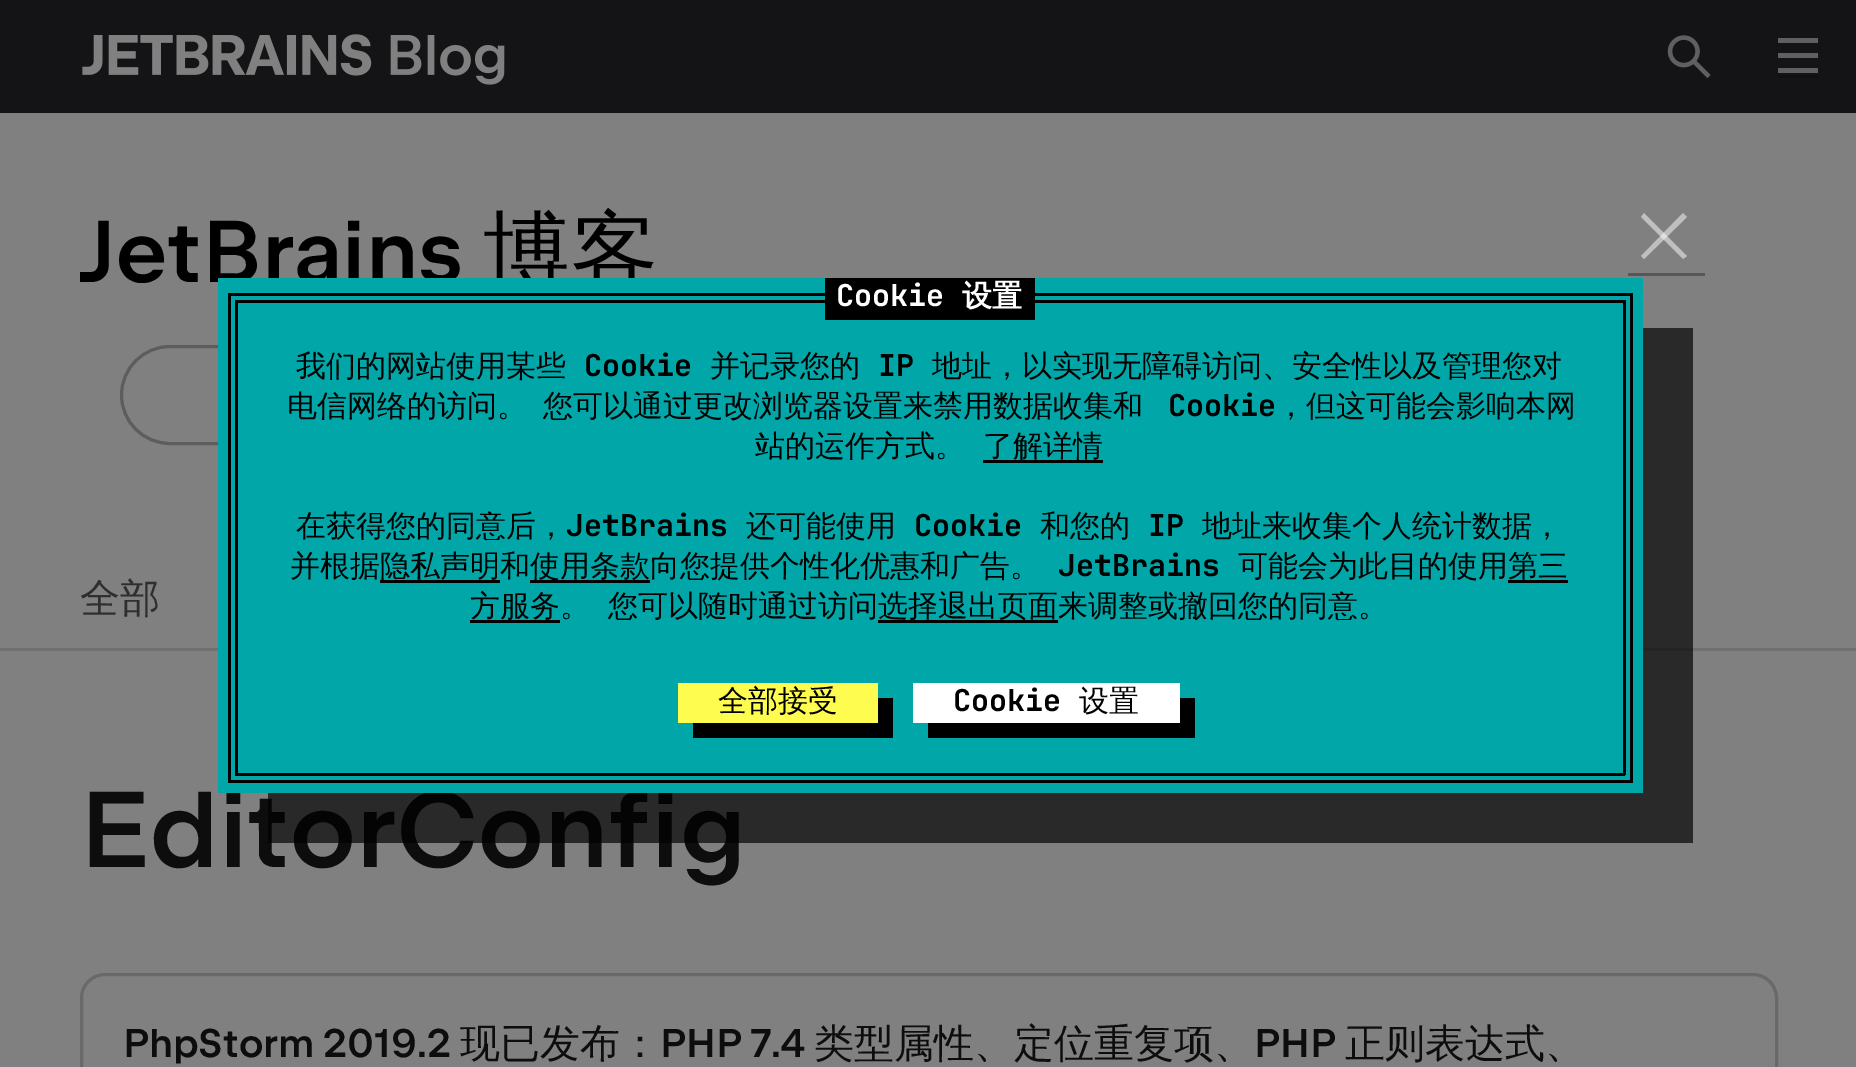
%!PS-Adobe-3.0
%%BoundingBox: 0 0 1856 1067
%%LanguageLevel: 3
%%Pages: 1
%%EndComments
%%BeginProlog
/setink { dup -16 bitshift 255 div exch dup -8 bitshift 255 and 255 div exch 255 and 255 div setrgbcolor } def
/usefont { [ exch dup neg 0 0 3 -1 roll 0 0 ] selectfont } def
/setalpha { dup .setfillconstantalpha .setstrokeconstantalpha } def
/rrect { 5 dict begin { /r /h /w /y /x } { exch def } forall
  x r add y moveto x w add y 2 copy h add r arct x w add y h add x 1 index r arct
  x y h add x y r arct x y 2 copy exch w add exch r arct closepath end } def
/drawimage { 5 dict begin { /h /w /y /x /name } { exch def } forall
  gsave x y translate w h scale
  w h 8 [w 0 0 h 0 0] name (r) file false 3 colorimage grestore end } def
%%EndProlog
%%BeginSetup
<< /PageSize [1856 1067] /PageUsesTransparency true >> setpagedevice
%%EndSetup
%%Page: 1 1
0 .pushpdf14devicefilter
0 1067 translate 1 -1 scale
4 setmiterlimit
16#808080 setink
0 0 1856 1067 rectfill
16#141416 setink
0 0 1856 113 rectfill
(img1.raw) 82 34 423 51 drawimage
(img2.raw) 1667 35 44 43 drawimage
[
    [1778 75 40 3 16#111113]
    [1778 38 40 5 16#5F6060]
    [1778 53 40 5 16#5F6060]
    [1778 68 40 5 16#5F6060]
] { aload pop setink rectfill } forall
/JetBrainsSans-SemiBold 87.5 usefont
16#000000 setink
80 282 moveto (JetBrains) show
/WenQuanYiZenHei-Medium 87.5 usefont
483 282 moveto (博客) show
16#5D5D5E setink
3 setlinewidth
121.5 346.5 302 97 48.5 rrect stroke
/WenQuanYiZenHei-Medium 40 usefont
16#2F2F30 setink
80 612 moveto (全部) show
16#707070 setink
0 648 1856 3 rectfill
/JetBrainsSans-SemiBold 107.5 usefont
16#0D0D0E setink
80 867 moveto (EditorConfig) show
16#696969 setink
81.5 974.5 1695 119 23.5 rrect stroke
/JetBrainsSans-SemiBold 40 usefont
16#0D0D0E setink
123 1057 moveto (PhpStorm 2019.2) show
/WenQuanYiZenHei-Medium 40 usefont
460 1057 moveto (现已发布：) show
/JetBrainsSans-SemiBold 40 usefont
660 1057 moveto (PHP 7.4) show
/WenQuanYiZenHei-Medium 40 usefont
814 1057 moveto (类型属性、定位重复项、) show
/JetBrainsSans-SemiBold 40 usefont
1254 1057 moveto (PHP) show
/WenQuanYiZenHei-Medium 40 usefont
1345 1057 moveto (正则表达式、) show
0.68 setalpha
16#000000 setink
268 792 moveto 268 843 lineto 1693 843 lineto 1693 328 lineto 1642 328 lineto 1642 792 lineto closepath fill
1 setalpha
16#01A7A8 setink
218 278 1425 515 rectfill
16#575758 setink
1628 273 77 3 rectfill
16#BFBFBF setink
1641 256 moveto 1683 213 lineto 1687 217 lineto 1644 259 lineto closepath fill
0.5 setalpha
16#FFFFFF setink
1644 213 moveto 1687 256 lineto 1683 259 lineto 1641 217 lineto closepath fill
1 setalpha
[
    [235 300 1390 3 16#000000]
    [1623 300 3 475 16#000000]
    [235 300 3 383 16#000000]
    [228 293 1405 3 16#000000]
    [825 278 210 42 16#000000]
] { aload pop setink rectfill } forall
/JetBrainsMono-Bold 30 usefont
16#FFFFFF setink
836 306 moveto (Cookie) show
/WenQuanYiZenHei-Bold 30 usefont
962 306 moveto (设置) show
16#000000 setink
1630 293 3 490 rectfill
228 293 3 387 rectfill
/WenQuanYiZenHei-Medium 30 usefont
296 376 moveto (我们的网站使用某些) show
/JetBrainsMono-Bold 30 usefont
584 376 moveto (Cookie) show
/WenQuanYiZenHei-Medium 30 usefont
710 376 moveto (并记录您的) show
/JetBrainsMono-Bold 30 usefont
878 376 moveto (IP) show
/WenQuanYiZenHei-Medium 30 usefont
932 376 moveto (地址，以实现无障碍访问、安全性以及管理您对) show
287 416 moveto 7 0 32 (电信网络的访问。 您可以通过更改浏览器设置来禁用数据收集和) widthshow
/JetBrainsMono-Bold 30 usefont
1168 416 moveto (Cookie) show
/WenQuanYiZenHei-Medium 30 usefont
[
    [(，但这可能会影响本网) 1276 416]
    [(站的运作方式。) 755 456]
    [(了解详情) 983 456]
] { aload pop moveto show } forall
983 460 120 3 rectfill
296 536 moveto (在获得您的同意后，) show
/JetBrainsMono-Bold 30 usefont
566 536 moveto (JetBrains) show
/WenQuanYiZenHei-Medium 30 usefont
746 536 moveto (还可能使用) show
/JetBrainsMono-Bold 30 usefont
914 536 moveto (Cookie) show
/WenQuanYiZenHei-Medium 30 usefont
1040 536 moveto (和您的) show
/JetBrainsMono-Bold 30 usefont
1148 536 moveto (IP) show
/WenQuanYiZenHei-Medium 30 usefont
1202 536 moveto (地址来收集个人统计数据，) show
290 576 moveto (并根据隐私声明和) show
530 580 120 3 rectfill
530 576 moveto (使用条款向您提供个性化优惠和广告。) show
/JetBrainsMono-Bold 30 usefont
1058 576 moveto (JetBrains) show
/WenQuanYiZenHei-Medium 30 usefont
1238 576 moveto (可能会为此目的使用第三) show
380 580 120 3 rectfill
470 620 90 3 rectfill
470 616 moveto (方服务) show
1508 580 60 3 rectfill
560 616 moveto 9 0 32 (。 您可以随时通过访问) widthshow
878 620 180 3 rectfill
878 616 moveto (选择退出页面来调整或撤回您的同意。) show
[
    [235 773 1390 3 16#000000]
    [235 683 3 92 16#000000]
    [228 780 1405 3 16#000000]
    [228 680 3 103 16#000000]
] { aload pop setink rectfill } forall
693 722 moveto 693 738 lineto 893 738 lineto 893 698 lineto 878 698 lineto 878 722 lineto closepath fill
16#FEFC4F setink
678 683 200 40 rectfill
16#000000 setink
718 711 moveto (全部接受) show
928 722 moveto 928 738 lineto 1195 738 lineto 1195 698 lineto 1180 698 lineto 1180 722 lineto closepath fill
16#FFFFFF setink
913 683 267 40 rectfill
/JetBrainsMono-Bold 30 usefont
16#000000 setink
953 711 moveto (Cookie) show
/WenQuanYiZenHei-Medium 30 usefont
1079 711 moveto (设置) show
.poppdf14devicefilter showpage
%%EOF
